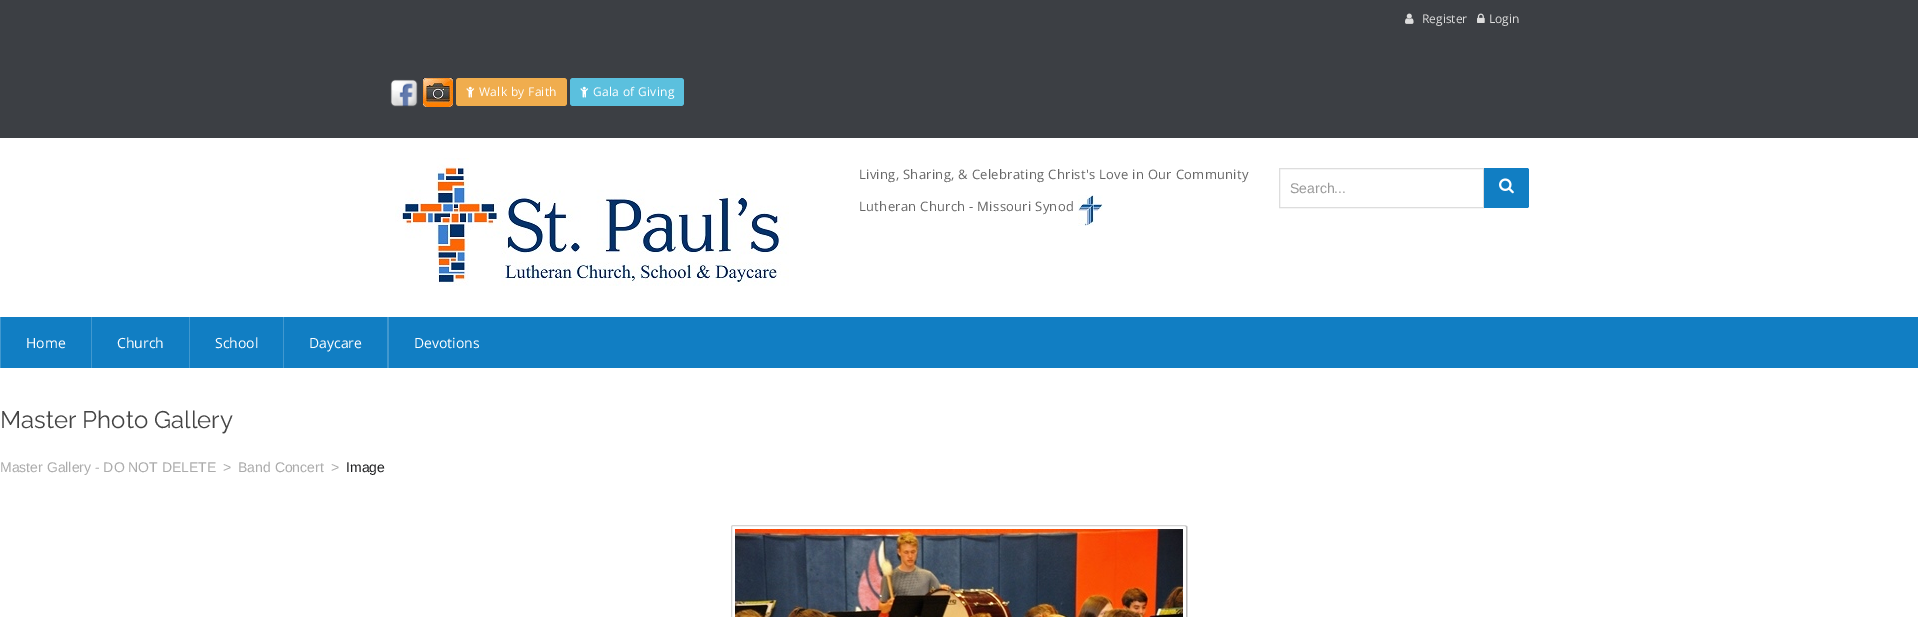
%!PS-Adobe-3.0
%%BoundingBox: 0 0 1918 617
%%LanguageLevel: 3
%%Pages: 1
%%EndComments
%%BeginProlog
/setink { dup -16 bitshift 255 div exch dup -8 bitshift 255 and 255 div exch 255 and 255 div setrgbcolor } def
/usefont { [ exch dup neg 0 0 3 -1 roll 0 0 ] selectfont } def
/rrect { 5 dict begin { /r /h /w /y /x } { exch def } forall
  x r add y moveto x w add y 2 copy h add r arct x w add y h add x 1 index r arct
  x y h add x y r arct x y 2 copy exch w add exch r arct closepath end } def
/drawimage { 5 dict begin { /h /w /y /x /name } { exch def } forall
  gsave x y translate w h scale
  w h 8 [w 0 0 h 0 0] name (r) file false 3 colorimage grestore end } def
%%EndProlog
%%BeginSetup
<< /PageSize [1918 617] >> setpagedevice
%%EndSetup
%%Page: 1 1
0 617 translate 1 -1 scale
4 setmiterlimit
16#FFFFFF setink
0 0 1918 617 rectfill
16#3C3F44 setink
0 0 1918 138 rectfill
(img1.raw) 1405 13 9 11 drawimage
/OpenSans-Regular 12 usefont
16#DDDDDD setink
1422 23 moveto (Register) show
(img2.raw) 1477 13 8 10 drawimage
1489 23 moveto (Login) show
(img3.raw) 390 79 28 28 drawimage
(img4.raw) 423 78 30 29 drawimage
16#F0AD4E setink
456 78 111 28 3 rrect fill
(img5.raw) 466 86 9 12 drawimage
16#FFFFFF setink
479 96 moveto 0.3 0 (Walk by Faith) ashow
16#5BC0DE setink
570 78 114 28 3 rrect fill
(img6.raw) 580 86 9 12 drawimage
16#FFFFFF setink
593 96 moveto 0.3 0 (Gala of Giving) ashow
(img7.raw) 395 158 394 128 drawimage
/OpenSans-Regular 13 usefont
16#666666 setink
859 179 moveto 0.3 0 (Living, Sharing, & Celebrating Christ's Love in Our Community) ashow
859 211 moveto 0.3 0 (Lutheran Church - Missouri Synod) ashow
(img8.raw) 1078 195 25 31 drawimage
16#DDDDDD setink
1279.5 168.5 204 39 rectstroke
/LiberationSans-Regular 14 usefont
16#999999 setink
1290 193 moveto (Search...) show
16#117EC3 setink
1484 168 moveto 1527 168 lineto 1528 168 1529 169 1529 170 curveto 1529 206 lineto 1529 207 1528 208 1527 208 curveto 1484 208 lineto closepath fill
(img9.raw) 1499 178 15 16 drawimage
1 317 1917 51 rectfill
/OpenSans-Regular 14 usefont
16#FFFFFF setink
26 348 moveto (Home) show
16#4198CF setink
0 317 1 51 rectfill
16#FFFFFF setink
117 348 moveto (Church) show
16#4198CF setink
91 317 1 51 rectfill
16#FFFFFF setink
215 348 moveto (School) show
16#4198CF setink
189 317 1 51 rectfill
16#FFFFFF setink
309 348 moveto (Daycare) show
16#4198CF setink
387 317 2 51 rectfill
283 317 1 51 rectfill
16#FFFFFF setink
414 348 moveto (Devotions) show
/Raleway-Regular 24 usefont
16#444444 setink
0 428 moveto (Master Photo Gallery) show
/LiberationSans-Regular 14 usefont
16#ABABAB setink
[
    [(Master Gallery - DO NOT DELETE) 0 472]
    [(>) 223 472]
    [(Band Concert) 238 472]
    [(>) 331 472]
] { aload pop moveto show } forall
16#1D1E20 setink
346 472 moveto (Image) show
16#E6E6E6 setink
732 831 moveto 732 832 733 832 734 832 curveto 1186 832 lineto 1187 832 1188 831 1188 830 curveto 1188 528 lineto 1188 527 1188 526 1187 526 curveto 1187 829 lineto 1187 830 1186 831 1185 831 curveto closepath fill
16#BABABA setink
1186 526 moveto 1186.5 527 lineto 1186.5 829 lineto 1186 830 lineto 1185 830.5 lineto 733 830.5 lineto 732 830 lineto stroke
16#D3D3D3 setink
732 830 moveto 731.5 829 lineto 731.5 527 lineto 732 526 lineto 733 525.5 lineto 1185 525.5 lineto 1186 526 lineto stroke
(img10.raw) 735 529 448 88 drawimage
showpage
%%EOF
